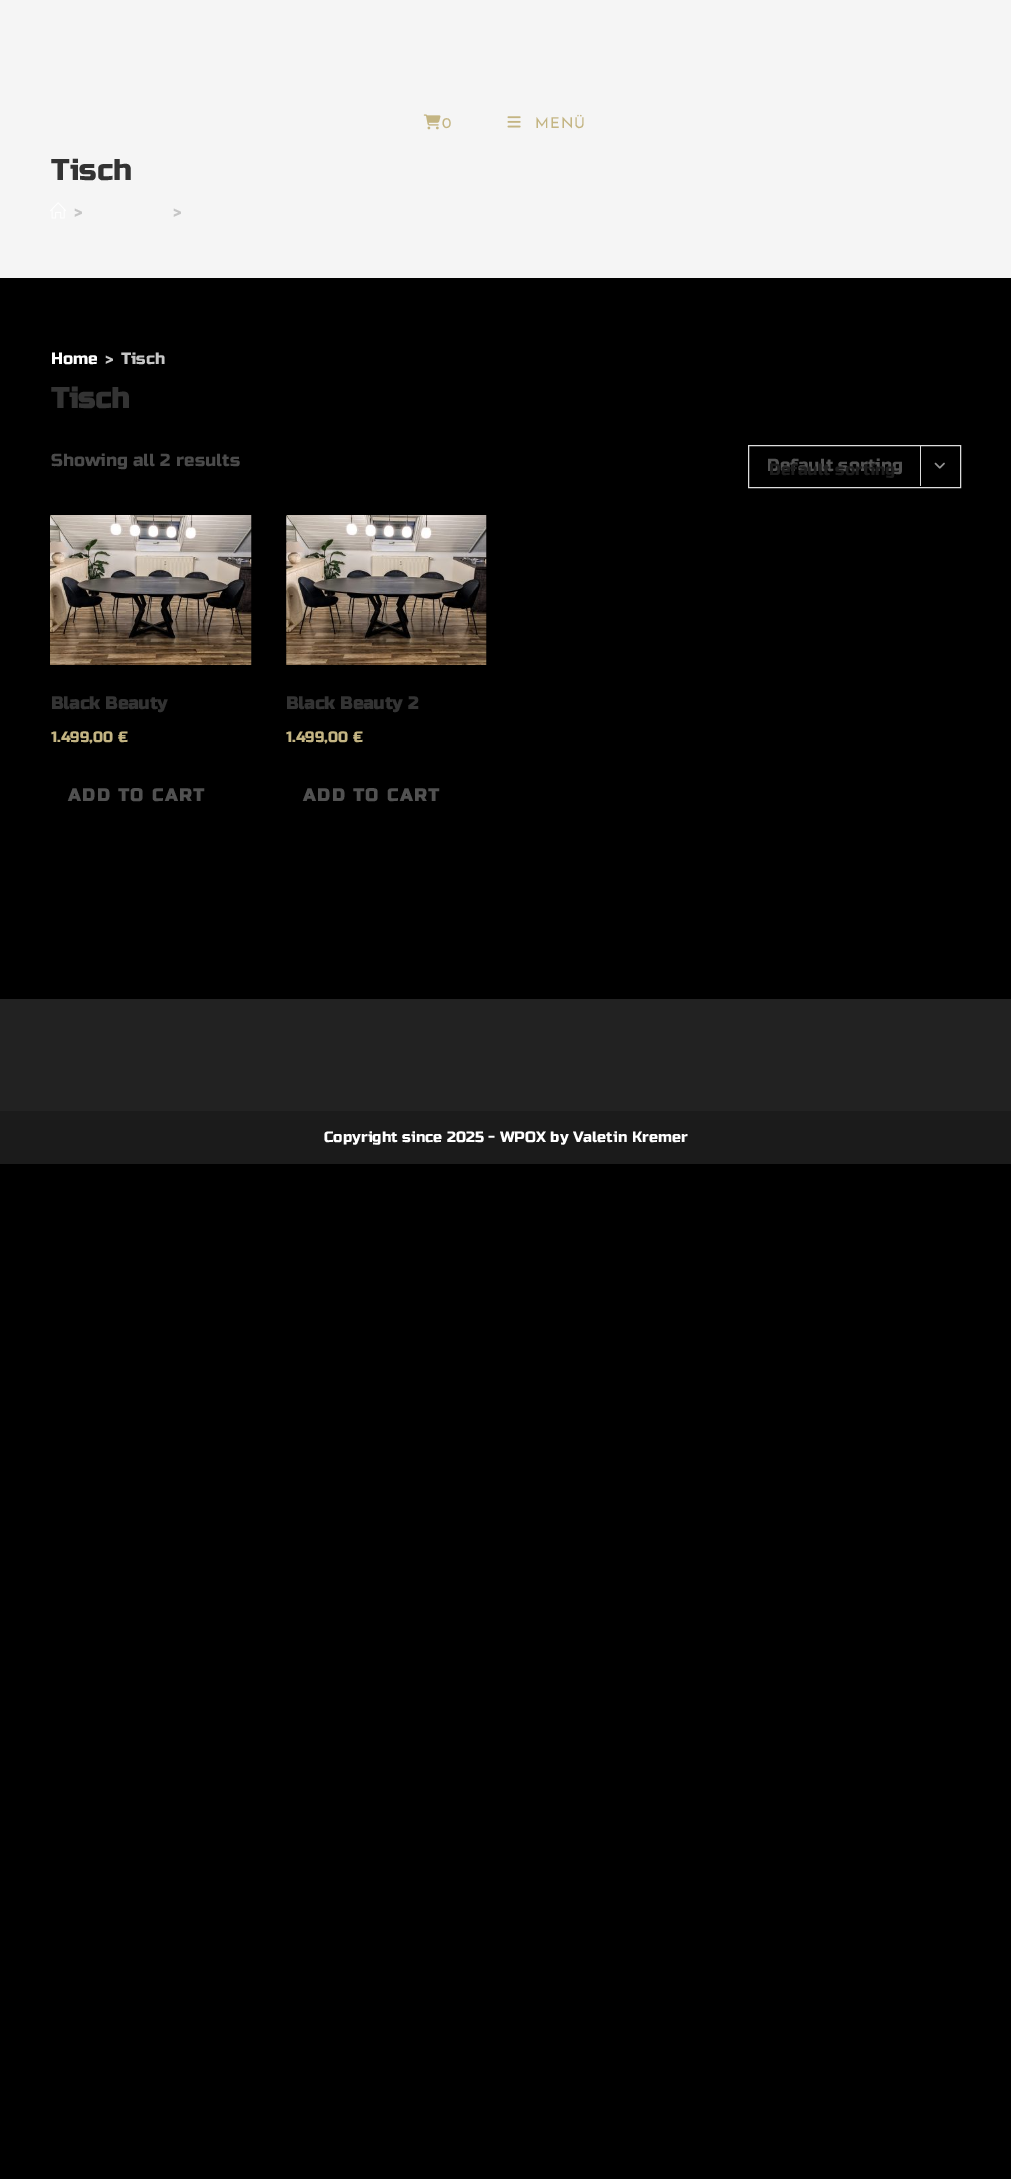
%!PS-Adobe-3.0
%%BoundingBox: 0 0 1011 2179
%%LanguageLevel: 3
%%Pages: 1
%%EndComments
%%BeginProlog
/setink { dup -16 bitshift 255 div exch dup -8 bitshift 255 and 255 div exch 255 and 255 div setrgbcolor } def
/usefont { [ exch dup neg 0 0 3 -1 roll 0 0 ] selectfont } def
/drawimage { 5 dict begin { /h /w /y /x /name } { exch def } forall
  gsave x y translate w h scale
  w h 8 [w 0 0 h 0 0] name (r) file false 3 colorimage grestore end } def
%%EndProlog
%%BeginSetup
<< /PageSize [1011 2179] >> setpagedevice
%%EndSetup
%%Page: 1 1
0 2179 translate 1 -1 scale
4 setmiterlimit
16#000000 setink
0 0 1011 2179 rectfill
16#F5F5F5 setink
0 0 1011 278 rectfill
(img1.raw) 423 114 18 16 drawimage
/JosefinSans-Thin 15 usefont
16#C4B583 setink
442 128 moveto 1 0 (0) ashow
(img2.raw) 507 116 14 12 drawimage
535 128 moveto 1 0 (MENÜ) ashow
/RussoOne-Regular 30 usefont
16#333333 setink
51 180 moveto (Tisch) show
(img3.raw) 50 202 16 17 drawimage
/RussoOne-Regular 16.25 usefont
16#C6C6C6 setink
74 217 moveto (>) show
173 217 moveto (>) show
16#FFFFFF setink
51 364 moveto (Home) show
16#C6C6C6 setink
105 364 moveto (>) show
121 364 moveto (Tisch) show
/RussoOne-Bold 29 usefont
16#333333 setink
51 408 moveto (Tisch) show
/RussoOne-Regular 17.5 usefont
16#4A4A4A setink
51 466 moveto (Showing all 2 results) show
16#DDDDDD setink
748.5 445.5 212 42 rectstroke
16#515151 setink
767 471 moveto (Default sorting) show
16#DDDDDD setink
920 446 1 40 rectfill
(img4.raw) 934 462 11 7 drawimage
/RussoOne-Regular 16.25 usefont
16#1D1D1D setink
769 475 moveto (Default sorting) show
(img5.raw) 50 515 202 150 drawimage
/RussoOne-Bold 17.5 usefont
16#333333 setink
51 709 moveto (Black Beauty) show
/RussoOne-Regular 15 usefont
16#C4B583 setink
51 742 moveto (1.499,00 €) show
/RussoOne-Bold 17.5 usefont
16#515151 setink
68 801 moveto 1.75 0 (ADD TO CART) ashow
(img6.raw) 286 515 201 150 drawimage
16#333333 setink
286 709 moveto (Black Beauty 2) show
/RussoOne-Regular 15 usefont
16#C4B583 setink
286 742 moveto (1.499,00 €) show
/RussoOne-Bold 17.5 usefont
16#515151 setink
303 801 moveto 1.75 0 (ADD TO CART) ashow
16#222222 setink
0 999 1011 112 rectfill
16#1B1B1B setink
0 1111 1011 53 rectfill
/RussoOne-Regular 15 usefont
16#FFFFFF setink
324 1142 moveto (Copyright since 2025 - WPOX by Valetin Kremer) show
showpage
%%EOF
